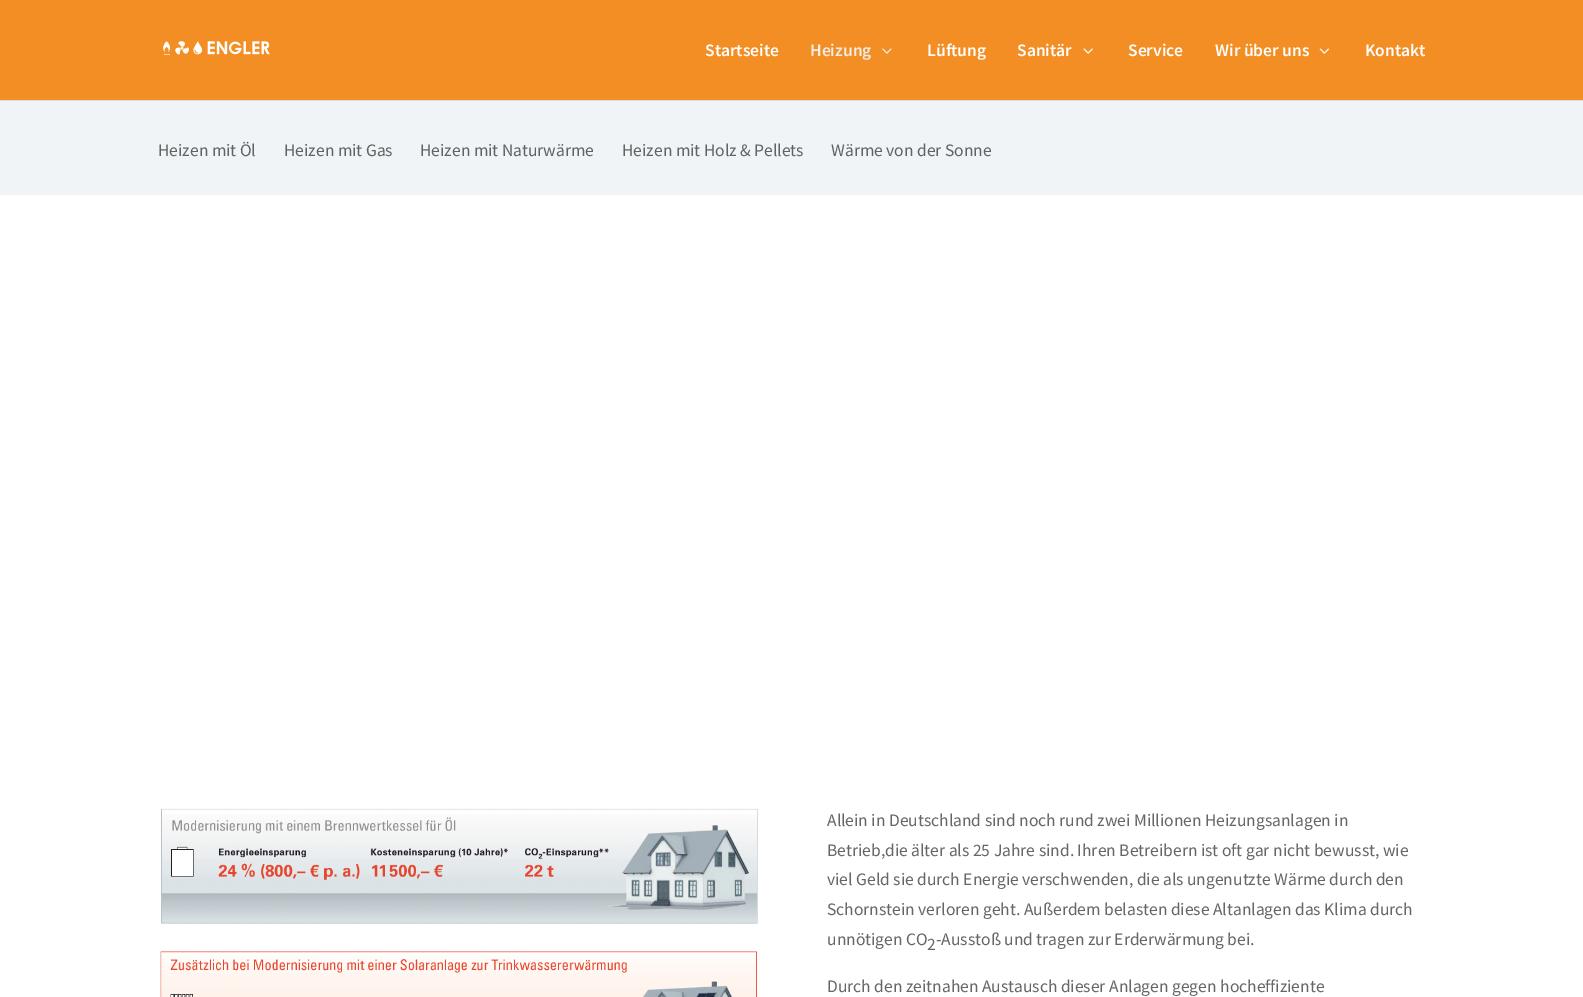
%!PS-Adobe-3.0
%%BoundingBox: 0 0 1583 997
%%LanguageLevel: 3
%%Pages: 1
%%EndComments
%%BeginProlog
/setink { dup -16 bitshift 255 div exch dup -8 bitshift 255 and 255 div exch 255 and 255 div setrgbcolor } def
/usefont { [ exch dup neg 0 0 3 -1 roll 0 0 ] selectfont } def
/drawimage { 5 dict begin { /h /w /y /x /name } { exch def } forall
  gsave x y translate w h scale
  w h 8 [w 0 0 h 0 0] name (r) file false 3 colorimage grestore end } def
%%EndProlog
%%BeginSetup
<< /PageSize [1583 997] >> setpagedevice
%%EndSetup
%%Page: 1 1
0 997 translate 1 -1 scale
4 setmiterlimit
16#FFFFFF setink
0 0 1583 997 rectfill
16#D9DCDE setink
0 100 moveto 0 101 lineto 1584 101 lineto 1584 1 lineto 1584 100 lineto closepath fill
16#F28E23 setink
0 0 1583 100 rectfill
(img1.raw) 163 41 107 14 drawimage
/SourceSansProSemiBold-SemiBold 17.5 usefont
16#FFFFFF setink
705 56 moveto (Startseite) show
16#F2EDEA setink
810 56 moveto (Heizung) show
(img2.raw) 882 48 10 6 drawimage
16#FFFFFF setink
927 56 moveto (Lüftung) show
1017 56 moveto (Sanitär) show
(img3.raw) 1083 48 10 6 drawimage
1128 56 moveto (Service) show
1215 56 moveto (Wir über uns) show
(img4.raw) 1319 48 10 6 drawimage
1365 56 moveto (Kontakt) show
16#F1F4F7 setink
0 101 1583 94 rectfill
/SourceSansPro-Regular 17.5 usefont
16#606263 setink
[
    [(Heizen mit Öl) 158 156]
    [(Heizen mit Gas) 284 156]
    [(Heizen mit Naturwärme) 420 156]
    [(Heizen mit Holz & Pellets) 622 156]
    [(Wärme von der Sonne) 831 156]
] { aload pop moveto show } forall
(img5.raw) 160 808 598 189 drawimage
16#666666 setink
[
    [(Allein in Deutschland sind noch rund zwei Millionen Heizungsanlagen in) 827 826]
    [(Betrieb,die älter als 25 Jahre sind. Ihren Betreibern ist oft gar nicht bewusst, wie) 827 856]
    [(viel Geld sie durch Energie verschwenden, die als ungenutzte Wärme durch den) 827 885]
    [(Schornstein verloren geht. Außerdem belasten diese Altanlagen das Klima durch) 827 915]
    [(unnötigen CO) 827 945]
    [(2) 927 950]
    [(-Ausstoß und tragen zur Erderwärmung bei.) 936 945]
    [(Durch den zeitnahen Austausch dieser Anlagen gegen hocheffiziente) 827 992]
] { aload pop moveto show } forall
showpage
%%EOF
